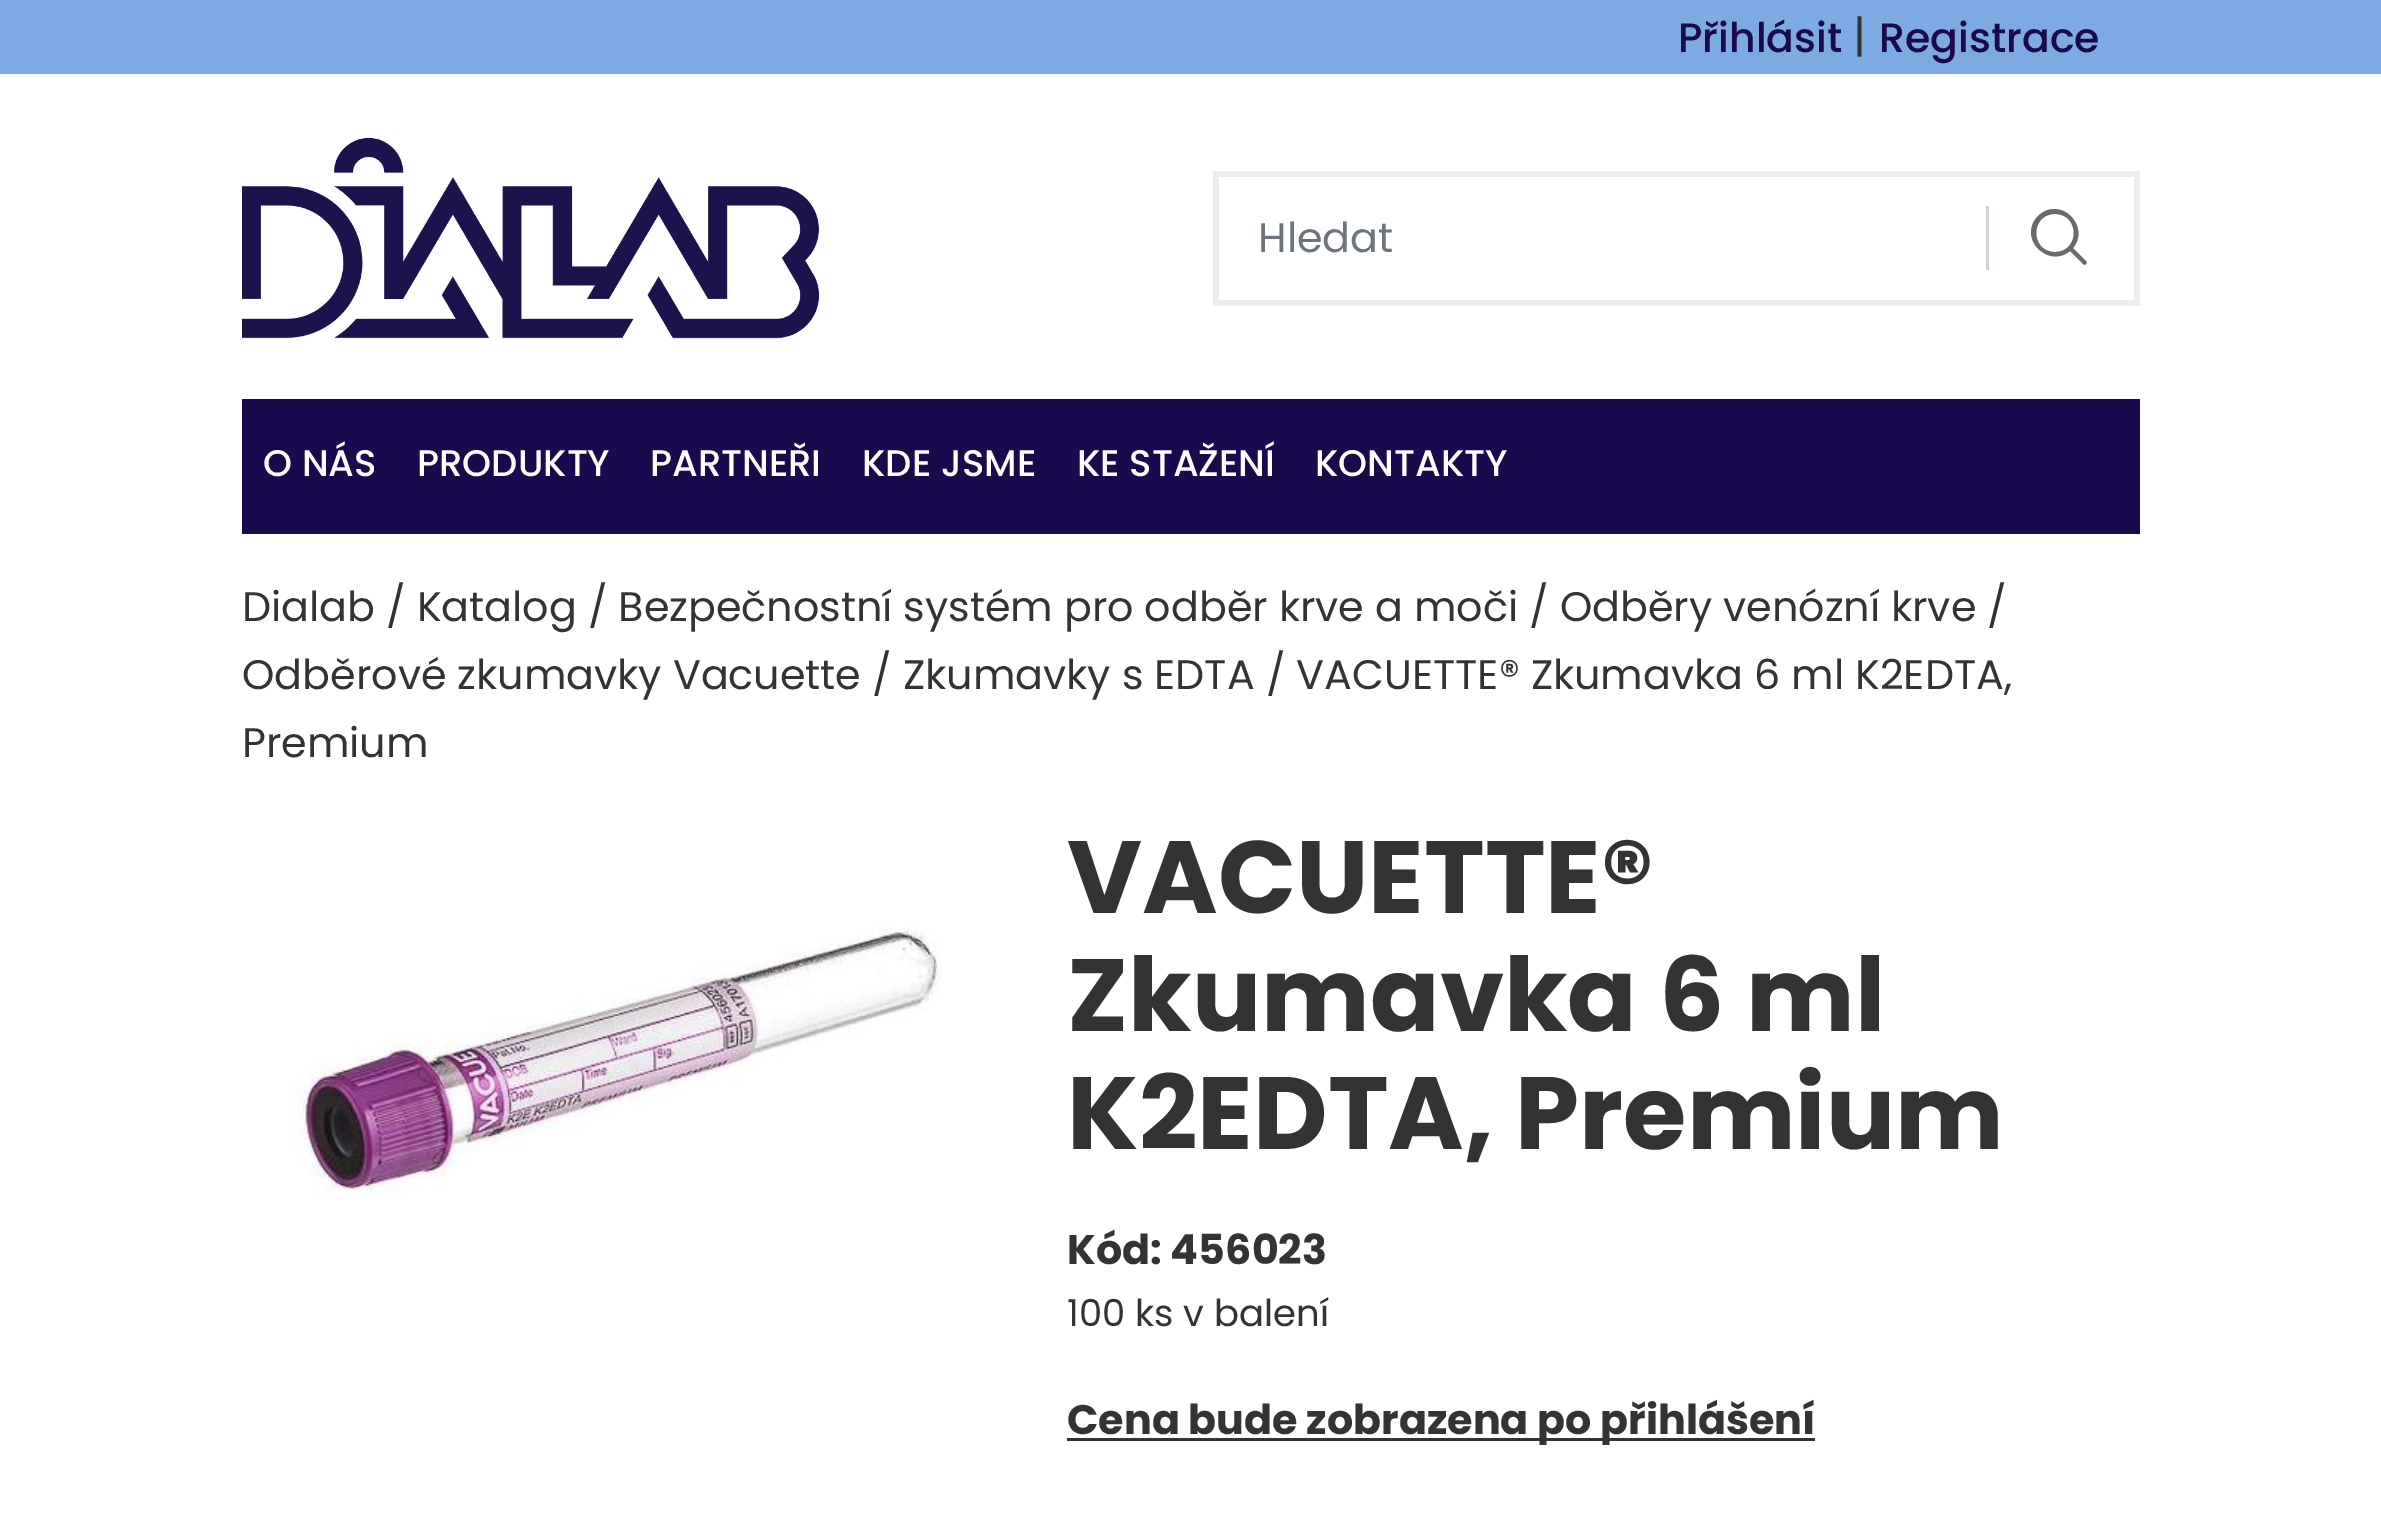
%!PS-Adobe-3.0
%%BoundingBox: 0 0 2381 1540
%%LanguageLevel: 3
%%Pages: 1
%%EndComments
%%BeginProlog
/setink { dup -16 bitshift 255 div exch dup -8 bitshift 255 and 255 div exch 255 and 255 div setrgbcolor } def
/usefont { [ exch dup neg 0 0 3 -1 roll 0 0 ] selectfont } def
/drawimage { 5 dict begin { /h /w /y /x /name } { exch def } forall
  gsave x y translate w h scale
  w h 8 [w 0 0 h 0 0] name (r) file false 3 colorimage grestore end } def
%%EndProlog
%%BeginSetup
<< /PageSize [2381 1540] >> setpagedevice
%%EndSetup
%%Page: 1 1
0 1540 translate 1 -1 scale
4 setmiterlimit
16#FFFFFF setink
0 0 2381 1540 rectfill
16#7DAAE2 setink
0 0 2381 74 rectfill
/Poppins-Medium 41 usefont
16#1B094D setink
1678 52 moveto (Přihlásit) show
/Poppins-Regular 45 usefont
16#333333 setink
1853 52 moveto (|) show
/Poppins-Medium 41 usefont
16#1B094D setink
1879 52 moveto (Registrace) show
(img1.raw) 242 137 578 202 drawimage
[
    [1213 171 927 6 16#ECECEC]
    [2134 171 6 134 16#ECECEC]
    [1213 300 927 6 16#ECECEC]
    [1986 206 3 64 16#CED4DA]
] { aload pop setink rectfill } forall
16#6A6A6A setink
2086 261 moveto 2073 248 lineto 2091 226 2060 195 2038 216 curveto 2017 238 2048 269 2070 251 curveto 2083 264 lineto 2084 265 2085 265 2086 264 curveto 2087 263 2087 262 2086 261 curveto closepath 2055 252 moveto 2030 252 2030 214 2055 214 curveto 2080 214 2080 252 2055 252 curveto closepath fill
16#ECECEC setink
1213 171 6 134 rectfill
/Poppins-Regular 41.25 usefont
16#6C757D setink
1258 252 moveto (Hledat) show
16#1B094D setink
242 399 1898 135 rectfill
/Poppins-Medium 37 usefont
16#FFFFFF setink
[
    [(O NÁS) 263 476]
    [(PRODUKTY) 417 476]
    [(PARTNEŘI) 650 476]
    [(KDE JSME) 862 476]
    [(KE STAŽENÍ) 1077 476]
    [(KONTAKTY) 1315 476]
] { aload pop moveto show } forall
/Poppins-Regular 41.25 usefont
16#333333 setink
[
    [(Dialab / Katalog / Bezpečnostní systém pro odběr krve a moči) 242 621]
    [(/ Odběry venózní krve /) 1529 621]
    [(Odběrové zkumavky Vacuette) 242 689]
    [(/ Zkumavky s EDTA / VACUETTE® Zkumavka 6 ml K2EDTA,) 872 689]
    [(Premium) 242 757]
] { aload pop moveto show } forall
(img2.raw) 290 927 653 271 drawimage
/Poppins-Bold 102.75 usefont
[
    [(VACUETTE®) 1067 913]
    [(Zkumavka 6 ml) 1067 1031]
    [(K2EDTA, Premium) 1067 1149]
] { aload pop moveto show } forall
/Poppins-Bold 41.25 usefont
1067 1264 moveto (Kód: 456023) show
/Poppins-Regular 37 usefont
1067 1326 moveto (100 ks v balení) show
1067 1438 748 3 rectfill
/Poppins-Bold 41.25 usefont
1067 1434 moveto (Cena bude zobrazena po přihlášení) show
showpage
%%EOF
